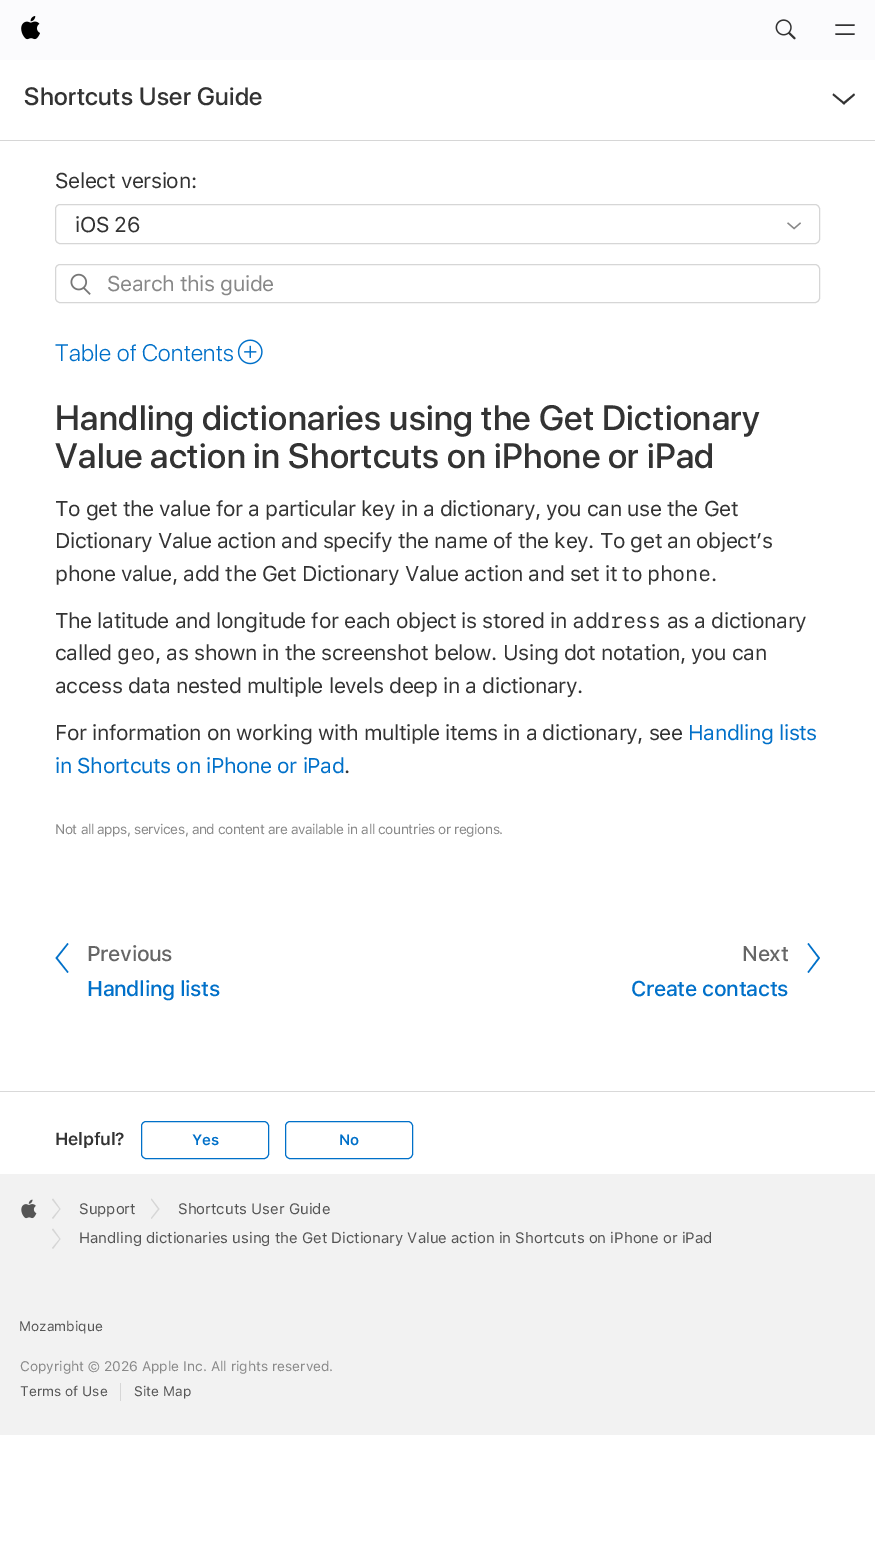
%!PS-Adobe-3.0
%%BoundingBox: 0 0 875 1546
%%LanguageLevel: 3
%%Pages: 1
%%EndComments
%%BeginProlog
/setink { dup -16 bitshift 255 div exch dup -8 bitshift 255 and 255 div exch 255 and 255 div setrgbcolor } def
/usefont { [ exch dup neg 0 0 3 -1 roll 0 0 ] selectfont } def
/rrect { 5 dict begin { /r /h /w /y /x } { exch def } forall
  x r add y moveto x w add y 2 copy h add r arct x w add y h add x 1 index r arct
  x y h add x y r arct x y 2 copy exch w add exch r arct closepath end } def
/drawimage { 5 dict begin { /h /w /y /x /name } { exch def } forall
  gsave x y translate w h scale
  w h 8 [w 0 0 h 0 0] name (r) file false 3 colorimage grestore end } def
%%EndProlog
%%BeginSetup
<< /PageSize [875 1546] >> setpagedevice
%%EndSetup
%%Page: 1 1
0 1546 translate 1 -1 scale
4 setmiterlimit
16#FFFFFF setink
0 0 875 1546 rectfill
16#FBFBFD setink
0 0 875 60 rectfill
(img1.raw) 21 16 19 24 drawimage
(img2.raw) 775 19 21 21 drawimage
16#323233 setink
1.5 setlinewidth
1 setlinecap
1 setlinejoin
836 34 moveto 854 34 lineto 836 25 moveto 854 25 lineto stroke
/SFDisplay-Medium 25 usefont
16#333333 setink
24 105 moveto 0.4 0 (Shortcuts User Guide) ashow
833.5 93.5 moveto 845 103 lineto 844 104.5 lineto 832.5 95 lineto closepath fill
842.5 103 moveto 854 93.5 lineto 855 95 lineto 844 104.5 lineto closepath fill
16#D6D6D6 setink
0 140 875 1 rectfill
/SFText-Regular 21.25 usefont
16#333333 setink
55 188 moveto -0.45 0 (Select version:) ashow
16#D6D6D6 setink
1 setlinewidth
0 setlinecap
0 setlinejoin
55.5 204.5 764 39 4.5 rrect stroke
16#333333 setink
75 232 moveto -0.45 0 (iOS 26) ashow
(img3.raw) 787 222 14 8 drawimage
16#D6D6D6 setink
55.5 264.5 764 38 4.5 rrect stroke
(img4.raw) 70 273 21 22 drawimage
16#888888 setink
107 291 moveto -0.45 0 (Search this guide) ashow
/SFDisplay-Light 23.75 usefont
16#0070C9 setink
55 361 moveto 0.4 0 (Table of Contents) ashow
(img5.raw) 237 339 26 26 drawimage
/SFDisplay-Medium 35 usefont
16#333333 setink
55 430 moveto 0.4 0 (Handling dictionaries using the Get Dictionary) ashow
55 468 moveto 0.4 0 (Value action in Shortcuts on iPhone or iPad) ashow
/SFText-Regular 21.25 usefont
55 516 moveto -0.45 0 (To get the value for a particular key in a dictionary, you can use the Get) ashow
55 548 moveto -0.45 0 (Dictionary Value action and specify the name of the key. To get an object’s) ashow
55 581 moveto -0.45 0 (phone value, add the Get Dictionary Value action and set it to) ashow
/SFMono-Regular 21.25 usefont
647 581 moveto -0.45 0 (phone) ashow
/SFText-Regular 21.25 usefont
711 581 moveto -0.45 0 (.) ashow
55 628 moveto -0.45 0 (The latitude and longitude for each object is stored in) ashow
/SFMono-Regular 21.25 usefont
572 628 moveto -0.45 0 (address) ashow
/SFText-Regular 21.25 usefont
667 628 moveto -0.45 0 (as a dictionary) ashow
55 660 moveto -0.45 0 (called) ashow
/SFMono-Regular 21.25 usefont
117 660 moveto -0.45 0 (geo) ashow
/SFText-Regular 21.25 usefont
155 660 moveto -0.45 0 (, as shown in the screenshot below. Using dot notation, you can) ashow
55 693 moveto -0.45 0 (access data nested multiple levels deep in a dictionary.) ashow
55 740 moveto -0.45 0 (For information on working with multiple items in a dictionary, see) ashow
16#0070C9 setink
688 740 moveto -0.45 0 (Handling lists) ashow
55 773 moveto -0.45 0 (in Shortcuts on iPhone or iPad) ashow
16#333333 setink
344 773 moveto -0.45 0 (.) ashow
/SFText-Regular 13.8 usefont
16#888888 setink
55 834 moveto -0.45 0 (Not all apps, services, and content are available in all countries or regions.) ashow
16#0070C9 setink
67.5 943 moveto 55.5 958 lineto 67.5 973 lineto 68.5 972 lineto 57.5 958 lineto 68.5 944 lineto closepath fill
/SFText-Medium 21.25 usefont
16#666666 setink
87 961 moveto -0.45 0 (Previous) ashow
16#0070C9 setink
87 996 moveto -0.45 0 (Handling lists) ashow
16#666666 setink
742 961 moveto -0.45 0 (Next) ashow
16#0070C9 setink
807.5 944 moveto 818 958 lineto 807.5 972 lineto 808.5 973 lineto 820 958 lineto 808.5 943 lineto closepath fill
631 996 moveto -0.45 0 (Create contacts) ashow
16#D9D9D9 setink
0 1091 875 1 rectfill
/SFText-SemiBold 17.5 usefont
16#333333 setink
55 1145 moveto -0.25 0 (Helpful?) ashow
16#0070C9 setink
141.5 1121.5 127 37 4.5 rrect stroke
/SFText-SemiBold 15 usefont
192 1145 moveto (Yes) show
285.5 1121.5 127 37 4.5 rrect stroke
339 1145 moveto (No) show
16#F2F2F2 setink
0 1174 875 261 rectfill
(img6.raw) 21 1199 16 20 drawimage
16#D6D6D6 setink
53 1198.5 moveto 60.5 1209 lineto 53 1219 lineto 52 1218 lineto 59.5 1209 lineto 52 1199.5 lineto closepath fill
/SFText-Regular 15 usefont
16#555555 setink
79 1214 moveto (Support) show
16#D6D6D6 setink
151.5 1198.5 moveto 159.5 1209 lineto 151.5 1219 lineto 151 1218 lineto 158 1209 lineto 151 1199.5 lineto closepath fill
16#555555 setink
178 1214 moveto (Shortcuts User Guide) show
16#D6D6D6 setink
53 1228.5 moveto 60.5 1239 lineto 53 1249 lineto 52 1248 lineto 59.5 1239 lineto 52 1229.5 lineto closepath fill
16#555555 setink
79 1243 moveto (Handling dictionaries using the Get Dictionary Value action in Shortcuts on iPhone or iPad) show
/SFText-Regular 13.8 usefont
19 1331 moveto (Mozambique) show
16#888888 setink
20 1371 moveto (Copyright © 2026 Apple Inc. All rights reserved.) show
16#D6D6D6 setink
120 1383 1 18 rectfill
16#555555 setink
20 1396 moveto (Terms of Use) show
134 1396 moveto (Site Map) show
showpage
%%EOF
